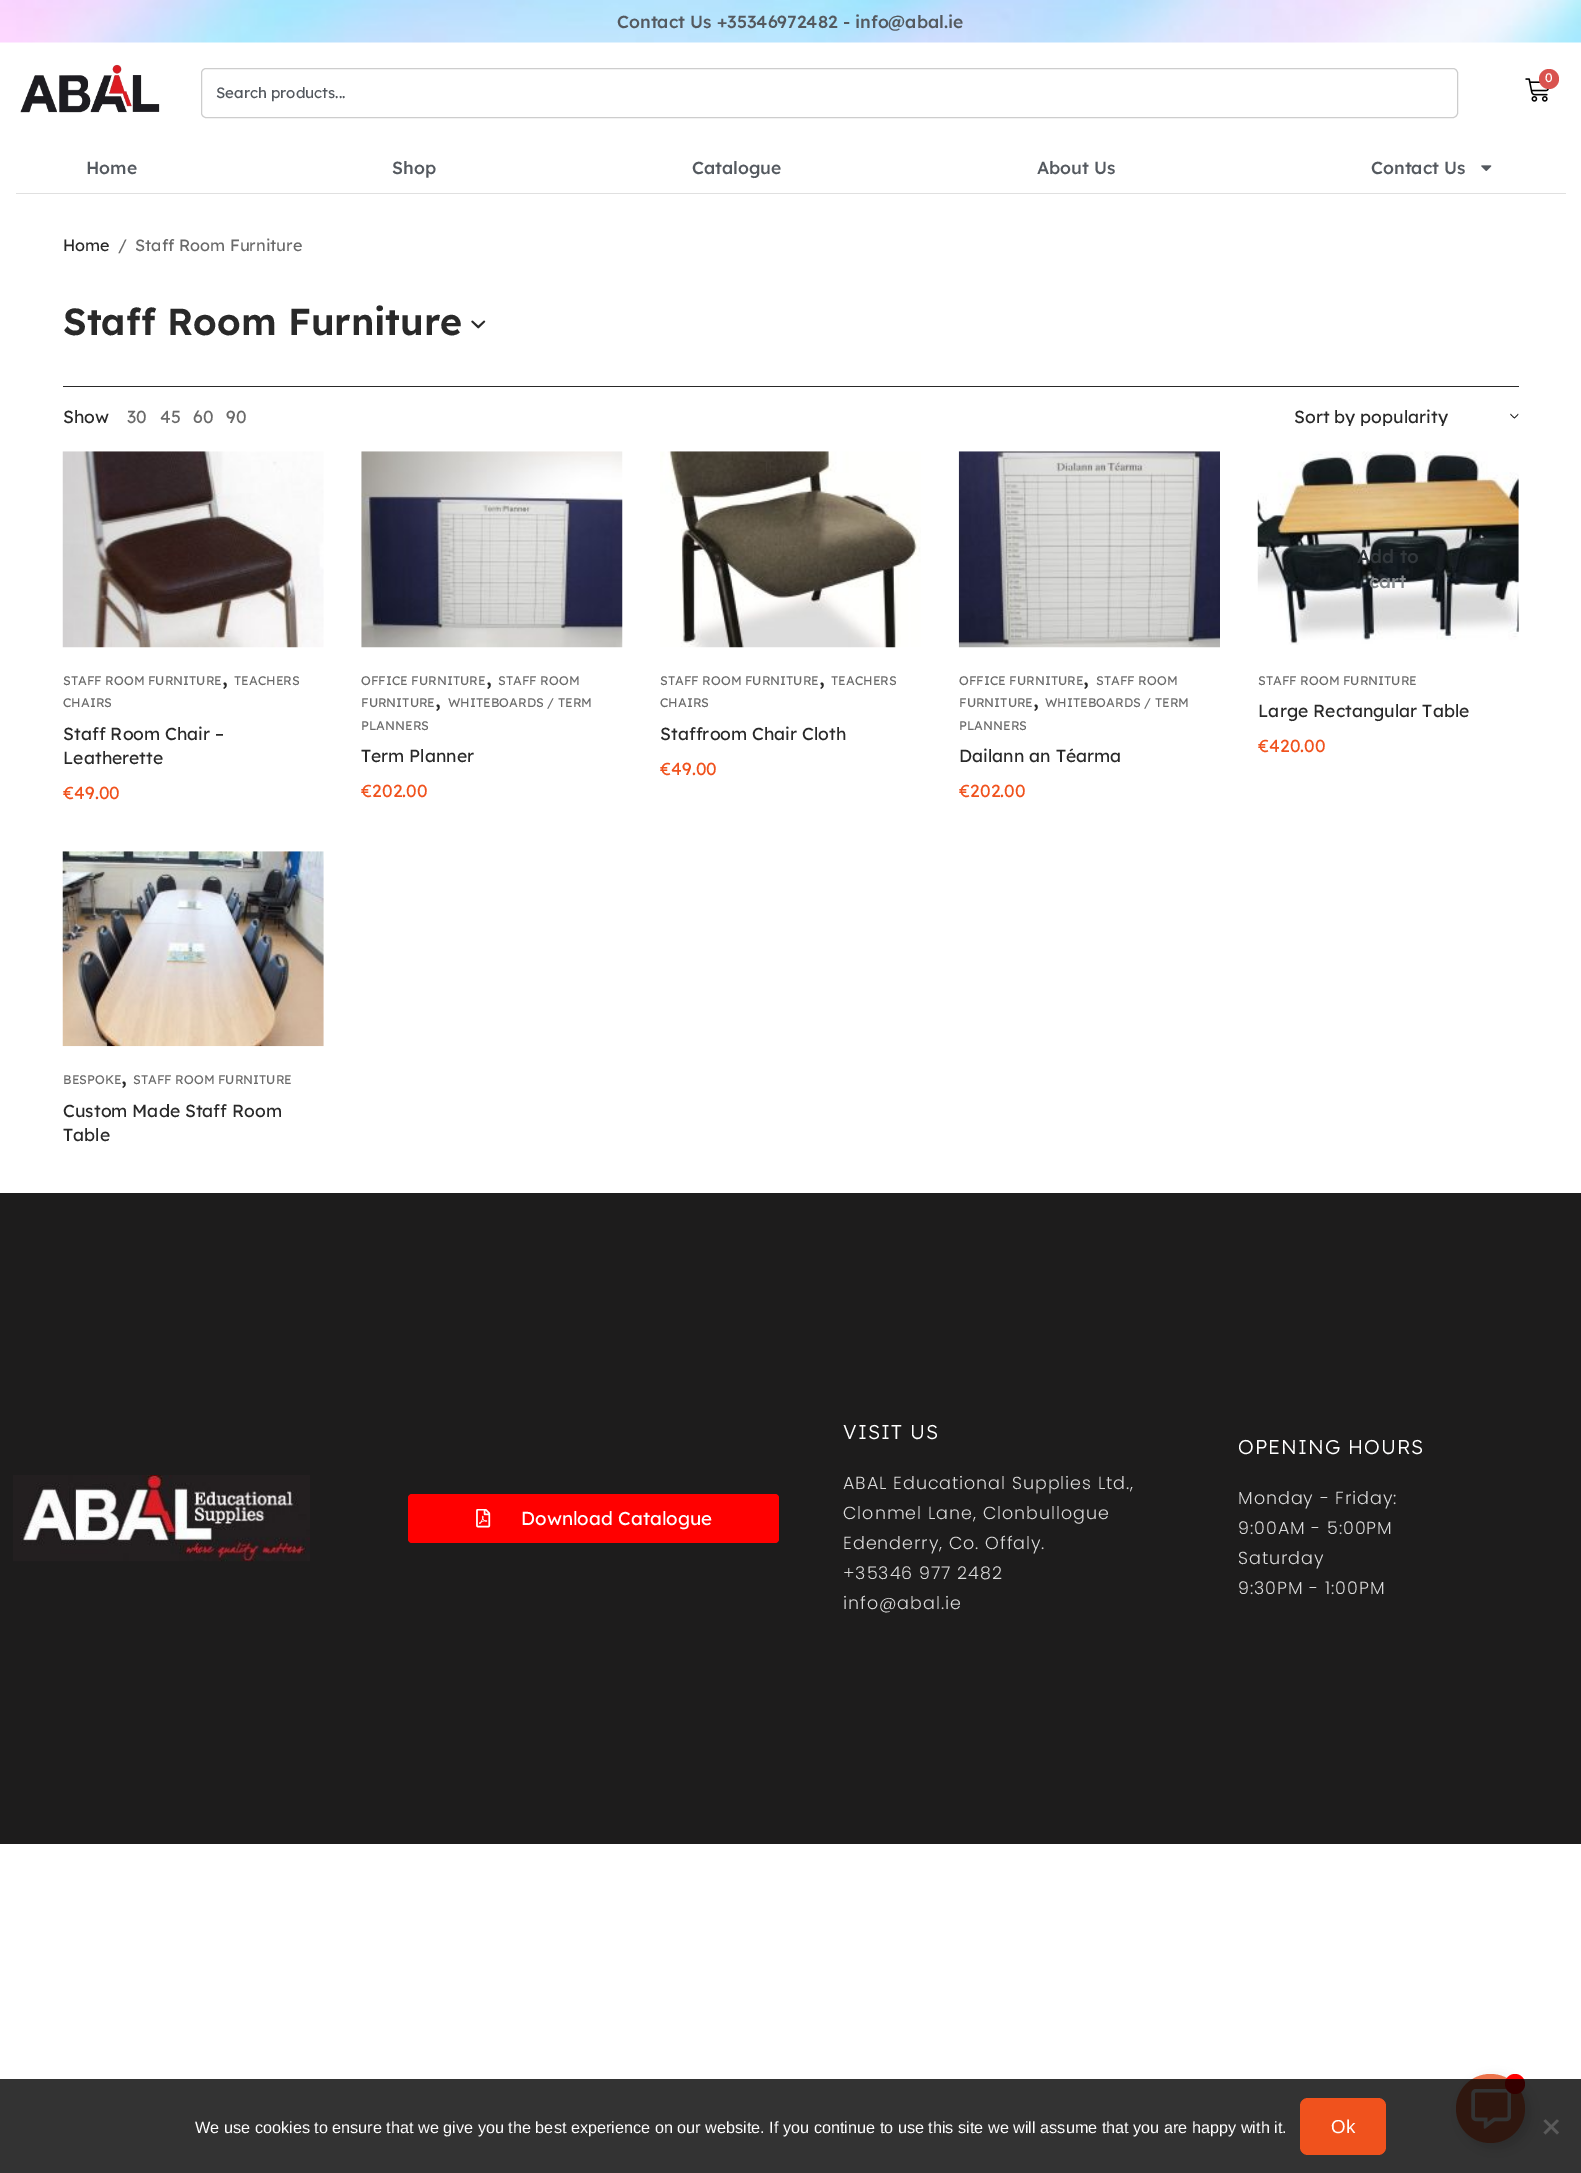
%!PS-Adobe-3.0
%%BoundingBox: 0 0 1581 2173
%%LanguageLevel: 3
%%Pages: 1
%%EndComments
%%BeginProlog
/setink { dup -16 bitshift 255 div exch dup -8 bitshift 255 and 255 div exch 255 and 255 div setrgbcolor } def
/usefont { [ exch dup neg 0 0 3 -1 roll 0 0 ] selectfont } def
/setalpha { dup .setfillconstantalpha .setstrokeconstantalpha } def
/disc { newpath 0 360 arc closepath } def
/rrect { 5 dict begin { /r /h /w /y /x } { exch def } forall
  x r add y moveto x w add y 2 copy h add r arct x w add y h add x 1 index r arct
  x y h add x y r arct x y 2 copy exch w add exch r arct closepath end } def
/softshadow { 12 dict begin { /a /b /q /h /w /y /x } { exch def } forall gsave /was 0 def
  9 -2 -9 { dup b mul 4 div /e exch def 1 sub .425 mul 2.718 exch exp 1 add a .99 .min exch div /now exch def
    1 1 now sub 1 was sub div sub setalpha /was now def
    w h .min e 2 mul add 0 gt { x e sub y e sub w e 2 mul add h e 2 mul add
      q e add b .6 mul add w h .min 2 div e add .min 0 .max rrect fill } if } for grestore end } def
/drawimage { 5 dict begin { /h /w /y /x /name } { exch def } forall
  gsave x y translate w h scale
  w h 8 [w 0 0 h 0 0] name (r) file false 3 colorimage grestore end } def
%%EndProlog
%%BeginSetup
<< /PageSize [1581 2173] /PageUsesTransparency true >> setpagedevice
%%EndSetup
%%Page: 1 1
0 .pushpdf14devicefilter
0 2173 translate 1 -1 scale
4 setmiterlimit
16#FFFFFF setink
0 0 1581 2173 rectfill
(img1.raw) 0 0 1581 43 drawimage
/Lexend-Medium 17.5 usefont
16#54595F setink
617 28 moveto (Contact Us +35346972482 - info@abal.ie) show
(img2.raw) 20 64 140 49 drawimage
(img3.raw) 1525 78 24 24 drawimage
16#D9534F setink
1549 79 10 disc fill
/Lexend-Regular 12.5 usefont
16#FFFFFF setink
1545 82 moveto (0) show
16#CDCDCD setink
201.5 68.5 1256 49 4.5 rrect stroke
/Lexend-Regular 15 usefont
16#54595F setink
216 98 moveto (Search products...) show
16#E0E0E0 setink
16 193 1550 1 rectfill
/Lexend-Medium 17.5 usefont
16#54595F setink
[
    [(Home) 86 174]
    [(Shop) 392 174]
    [(Catalogue) 692 174]
    [(About Us) 1037 174]
    [(Contact Us) 1371 174]
] { aload pop moveto show } forall
(img4.raw) 1481 165 11 6 drawimage
/Lexend-Regular 16.25 usefont
16#292929 setink
63 251 moveto (Home) show
16#6A6A6A setink
118 251 moveto (/) show
135 251 moveto (Staff Room Furniture) show
/Lexend-SemiBold 37.5 usefont
16#292929 setink
63 335 moveto (Staff Room Furniture) show
(img5.raw) 471 320 15 9 drawimage
63 386 1456 1 rectfill
/Lexend-Regular 17.5 usefont
63 423 moveto (Show) show
16#6A6A6A setink
[
    [(30) 127 423]
    [(45) 160 423]
    [(60) 193 423]
    [(90) 226 423]
] { aload pop moveto show } forall
(img6.raw) 1510 413 9 6 drawimage
gsave
1294 406 212 20 rectclip
16#292929 setink
1294 423 moveto (Sort by popularity) show
grestore
(img7.raw) 62 451 262 197 drawimage
/Lexend-Regular 12.5 usefont
63 685 moveto (STAFF ROOM FURNITURE) show
/Lexend-Regular 22 usefont
16#292929 setink
222 685 moveto (,) show
/Lexend-Regular 12.5 usefont
16#6A6A6A setink
234 685 moveto (TEACHERS) show
63 707 moveto (CHAIRS) show
/Lexend-Regular 17.5 usefont
16#292929 setink
63 740 moveto (Staff Room Chair –) show
63 764 moveto (Leatherette) show
16#F0521D setink
63 799 moveto (€49.00) show
(img8.raw) 361 451 262 197 drawimage
/Lexend-Regular 12.5 usefont
16#6A6A6A setink
361 685 moveto (OFFICE FURNITURE) show
/Lexend-Regular 22 usefont
16#292929 setink
486 685 moveto (,) show
/Lexend-Regular 12.5 usefont
16#6A6A6A setink
498 685 moveto (STAFF ROOM) show
361 707 moveto (FURNITURE) show
/Lexend-Regular 22 usefont
16#292929 setink
435 707 moveto (,) show
/Lexend-Regular 12.5 usefont
16#6A6A6A setink
448 707 moveto (WHITEBOARDS / TERM) show
361 730 moveto (PLANNERS) show
/Lexend-Regular 17.5 usefont
16#292929 setink
361 762 moveto (Term Planner) show
16#F0521D setink
361 797 moveto (€202.00) show
(img9.raw) 660 451 261 197 drawimage
/Lexend-Regular 12.5 usefont
16#6A6A6A setink
660 685 moveto (STAFF ROOM FURNITURE) show
/Lexend-Regular 22 usefont
16#292929 setink
819 685 moveto (,) show
/Lexend-Regular 12.5 usefont
16#6A6A6A setink
831 685 moveto (TEACHERS) show
660 707 moveto (CHAIRS) show
/Lexend-Regular 17.5 usefont
16#292929 setink
660 740 moveto (Staffroom Chair Cloth) show
16#F0521D setink
660 775 moveto (€49.00) show
(img10.raw) 958 451 262 197 drawimage
/Lexend-Regular 12.5 usefont
16#6A6A6A setink
959 685 moveto (OFFICE FURNITURE) show
/Lexend-Regular 22 usefont
16#292929 setink
1083 685 moveto (,) show
/Lexend-Regular 12.5 usefont
16#6A6A6A setink
1096 685 moveto (STAFF ROOM) show
959 707 moveto (FURNITURE) show
/Lexend-Regular 22 usefont
16#292929 setink
1033 707 moveto (,) show
/Lexend-Regular 12.5 usefont
16#6A6A6A setink
1045 707 moveto (WHITEBOARDS / TERM) show
959 730 moveto (PLANNERS) show
/Lexend-Regular 17.5 usefont
16#292929 setink
959 762 moveto (Dailann an Téarma) show
16#F0521D setink
959 797 moveto (€202.00) show
(img11.raw) 1257 451 262 194 drawimage
/Lexend-Medium 18.75 usefont
16#32373B setink
1357 563 moveto (Add to) show
16#84888B setink
1369 588 moveto (cart) show
/Lexend-Regular 12.5 usefont
16#6A6A6A setink
1258 685 moveto (STAFF ROOM FURNITURE) show
/Lexend-Regular 17.5 usefont
16#292929 setink
1258 717 moveto (Large Rectangular Table) show
16#F0521D setink
1258 752 moveto (€420.00) show
(img12.raw) 62 851 262 196 drawimage
/Lexend-Regular 12.5 usefont
16#6A6A6A setink
63 1084 moveto (BESPOKE) show
/Lexend-Regular 22 usefont
16#292929 setink
121 1084 moveto (,) show
/Lexend-Regular 12.5 usefont
16#6A6A6A setink
133 1084 moveto (STAFF ROOM FURNITURE) show
/Lexend-Regular 17.5 usefont
16#292929 setink
63 1117 moveto (Custom Made Staff Room) show
63 1141 moveto (Table) show
16#1D1C1C setink
0 1193 1581 651 rectfill
(img13.raw) 13 1475 297 87 drawimage
16#FF0000 setink
408 1494 371 49 4 rrect fill
(img14.raw) 476 1509 15 19 drawimage
/Lexend-Regular 18.75 usefont
16#FFFFFF setink
521 1525 moveto (Download Catalogue) show
/Lexend-Light 20 usefont
843 1439 moveto 1.1 0 (VISIT US) ashow
/Poppins-Light 17.5 usefont
16#DADADA setink
843 1489 moveto 0.95 0 (ABAL Educational Supplies Ltd.,) ashow
843 1519 moveto 0.95 0 (Clonmel Lane, Clonbullogue) ashow
843 1549 moveto 0.95 0 (Edenderry, Co. Offaly.) ashow
843 1579 moveto 0.95 0 (+35346 977 2482) ashow
843 1609 moveto 0.95 0 (info@abal.ie) ashow
/Lexend-Light 20 usefont
16#FFFFFF setink
1238 1454 moveto 1.1 0 (OPENING HOURS) ashow
/Poppins-Light 17.5 usefont
16#DADADA setink
1238 1504 moveto 0.95 0 (Monday - Friday:) ashow
1238 1534 moveto 0.95 0 (9:00AM - 5:00PM) ashow
1238 1564 moveto 0.95 0 (Saturday) ashow
1238 1594 moveto 0.95 0 (9:30PM - 1:00PM) ashow
16#000000 setink
1461 2079 69 69 34.5 6 0.15 softshadow
16#EC744C setink
1490.5 2108.5 34.5 disc fill
(img15.raw) 1471 2089 40 40 drawimage
16#FF0000 setink
1515 2084 10 disc fill
0.8 setalpha
16#000000 setink
0 2079 1581 94 rectfill
/LiberationSans-Regular 16.25 usefont
1 setalpha
16#FFFFFF setink
195 2133 moveto (We use cookies to ensure that we give you the best experience on our website. If you continue to use this site we will assume that you are happy with it.) show
16#F0521D setink
1300 2098 86 57 8 rrect fill
/LiberationSans-Regular 18.75 usefont
16#FFFFFF setink
1331 2133 moveto (Ok) show
16#5A5A5A setink
1557 2119.5 moveto 1559 2121 lineto 1545.5 2134.5 lineto 1543.5 2132.5 lineto closepath fill
1543.5 2121 moveto 1545.5 2119.5 lineto 1559 2132.5 lineto 1557 2134.5 lineto closepath fill
.poppdf14devicefilter showpage
%%EOF
